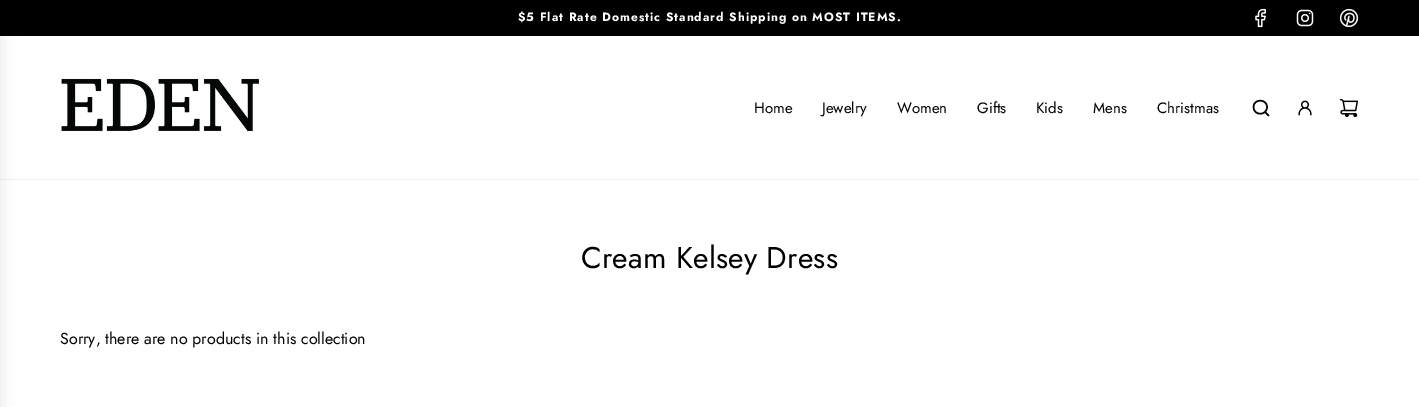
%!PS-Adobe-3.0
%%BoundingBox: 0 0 1419 407
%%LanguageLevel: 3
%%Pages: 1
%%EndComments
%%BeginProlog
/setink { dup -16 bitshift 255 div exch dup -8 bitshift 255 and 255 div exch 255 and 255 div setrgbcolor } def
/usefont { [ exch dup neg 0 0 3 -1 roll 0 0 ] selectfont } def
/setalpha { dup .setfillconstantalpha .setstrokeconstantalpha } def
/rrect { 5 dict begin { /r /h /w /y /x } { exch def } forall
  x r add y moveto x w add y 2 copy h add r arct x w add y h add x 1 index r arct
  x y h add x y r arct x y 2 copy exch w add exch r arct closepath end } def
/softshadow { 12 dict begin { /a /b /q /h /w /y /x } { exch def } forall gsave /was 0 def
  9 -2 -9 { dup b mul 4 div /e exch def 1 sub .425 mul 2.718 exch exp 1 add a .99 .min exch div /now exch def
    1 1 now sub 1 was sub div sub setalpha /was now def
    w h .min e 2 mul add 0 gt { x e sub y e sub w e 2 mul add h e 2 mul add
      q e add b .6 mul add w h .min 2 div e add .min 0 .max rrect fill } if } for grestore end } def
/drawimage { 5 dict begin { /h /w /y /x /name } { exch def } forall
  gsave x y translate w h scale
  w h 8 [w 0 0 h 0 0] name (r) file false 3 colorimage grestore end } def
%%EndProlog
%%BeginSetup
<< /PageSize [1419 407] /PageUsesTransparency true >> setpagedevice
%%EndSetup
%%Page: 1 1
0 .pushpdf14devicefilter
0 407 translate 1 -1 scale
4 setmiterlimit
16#FFFFFF setink
0 0 1419 407 rectfill
16#000000 setink
0 0 1419 36 rectfill
/Jost-Bold 12 usefont
16#FFFFFF setink
518 21 moveto 1 0 ($5 Flat Rate Domestic Standard Shipping on MOST ITEMS.) ashow
(img1.raw) 1255 8 11 20 drawimage
(img2.raw) 1296 9 18 18 drawimage
(img3.raw) 1339 8 20 20 drawimage
16#EEEEEE setink
0 179 1419 1 rectfill
16#000000 setink
-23 5 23 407 0 7.5 0.1 softshadow
(img4.raw) 61 78 198 54 drawimage
/Jost-Regular 15 usefont
[
    [(Home) 754 113]
    [(Jewelry) 822 113]
    [(Women) 897 113]
    [(Gifts) 977 113]
    [(Kids) 1036 113]
    [(Mens) 1093 113]
    [(Christmas) 1157 113]
] { aload pop moveto show } forall
1.5 setlinewidth
1 setlinecap
1 setlinejoin
1265 112 moveto 1268.5 115.5 lineto 1253.5 107 moveto 1253.5 116 1267 116 1267 107 curveto 1267 98.5 1253.5 98.5 1253.5 107 curveto closepath stroke
(img5.raw) 1298 100 14 16 drawimage
(img6.raw) 1339 98 20 20 drawimage
/Jost-Regular 30 usefont
581 268 moveto 0.25 0 (Cream Kelsey Dress) ashow
/Jost-Regular 16 usefont
60 344 moveto (Sorry, there are no products in this collection) show
.poppdf14devicefilter showpage
%%EOF
